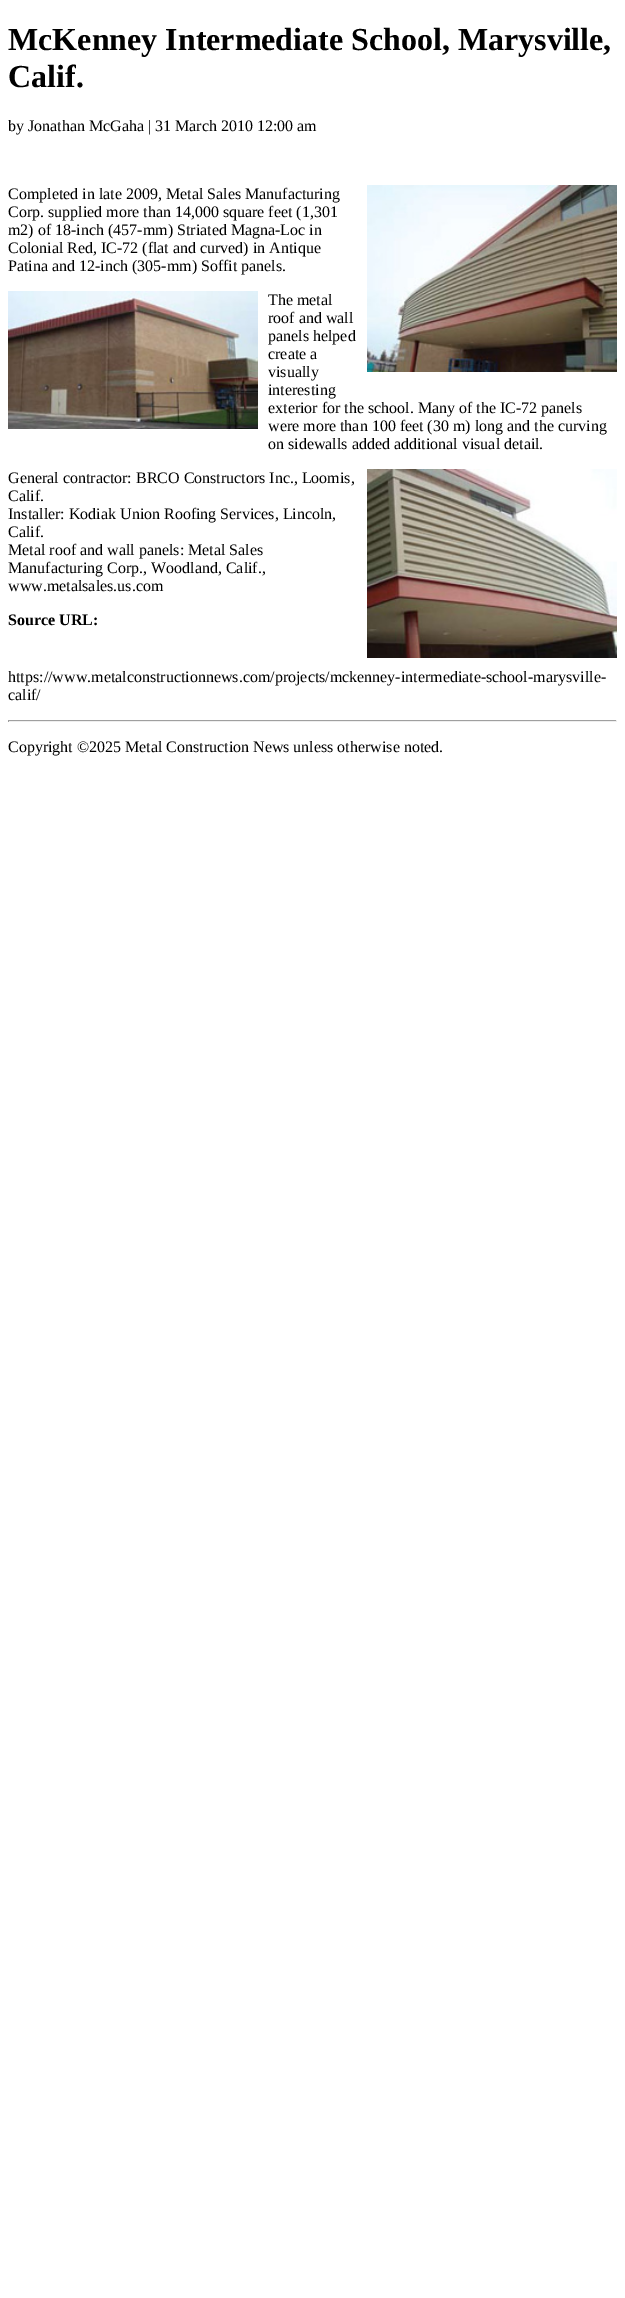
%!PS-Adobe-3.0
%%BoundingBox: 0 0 625 2298
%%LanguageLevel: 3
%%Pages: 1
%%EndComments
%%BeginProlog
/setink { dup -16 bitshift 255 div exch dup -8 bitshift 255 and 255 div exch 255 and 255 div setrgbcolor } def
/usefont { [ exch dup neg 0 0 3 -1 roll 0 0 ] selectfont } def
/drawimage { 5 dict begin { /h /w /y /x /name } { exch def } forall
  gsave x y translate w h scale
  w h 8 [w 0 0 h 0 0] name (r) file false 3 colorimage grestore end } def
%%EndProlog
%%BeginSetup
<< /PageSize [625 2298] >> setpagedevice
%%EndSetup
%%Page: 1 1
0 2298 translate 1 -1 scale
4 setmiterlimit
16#FFFFFF setink
0 0 625 2298 rectfill
/LiberationSerif-Bold 32 usefont
16#000000 setink
8 50 moveto (McKenney Intermediate School, Marysville,) show
8 87 moveto (Calif.) show
/LiberationSerif-Regular 16 usefont
8 131 moveto (by Jonathan McGaha | 31 March 2010 12:00 am) show
8 199 moveto (Completed in late 2009, Metal Sales Manufacturing) show
(img1.raw) 367 185 250 187 drawimage
[
    [(Corp. supplied more than 14,000 square feet \(1,301) 8 217]
    [(m2\) of 18-inch \(457-mm\) Striated Magna-Loc in) 8 235]
    [(Colonial Red, IC-72 \(flat and curved\) in Antique) 8 253]
    [(Patina and 12-inch \(305-mm\) Soffit panels.) 8 271]
] { aload pop moveto show } forall
(img2.raw) 8 291 250 138 drawimage
[
    [(The metal) 268 305]
    [(roof and wall) 268 323]
    [(panels helped) 268 341]
    [(create a) 268 359]
    [(visually) 268 377]
    [(interesting) 268 395]
    [(exterior for the school. Many of the IC-72 panels) 268 413]
    [(were more than 100 feet \(30 m\) long and the curving) 268 431]
    [(on sidewalls added additional visual detail.) 268 449]
    [(General contractor: BRCO Constructors Inc., Loomis,) 8 483]
] { aload pop moveto show } forall
(img3.raw) 367 469 250 189 drawimage
[
    [(Calif.) 8 501]
    [(Installer: Kodiak Union Roofing Services, Lincoln,) 8 519]
    [(Calif.) 8 537]
    [(Metal roof and wall panels: Metal Sales) 8 555]
    [(Manufacturing Corp., Woodland, Calif.,) 8 573]
    [(www.metalsales.us.com) 8 591]
] { aload pop moveto show } forall
/LiberationSerif-Bold 16 usefont
8 625 moveto (Source URL:) show
/LiberationSerif-Regular 16 usefont
8 682 moveto (https://www.metalconstructionnews.com/projects/mckenney-intermediate-school-marysville-) show
8 700 moveto (calif/) show
[
    [8 720 609 1 16#9F9F9F]
    [616 720 1 2 16#EEEEEE]
    [8 721 609 1 16#EEEEEE]
    [8 720 1 2 16#9F9F9F]
] { aload pop setink rectfill } forall
16#000000 setink
8 752 moveto (Copyright ©2025 Metal Construction News unless otherwise noted.) show
showpage
%%EOF
